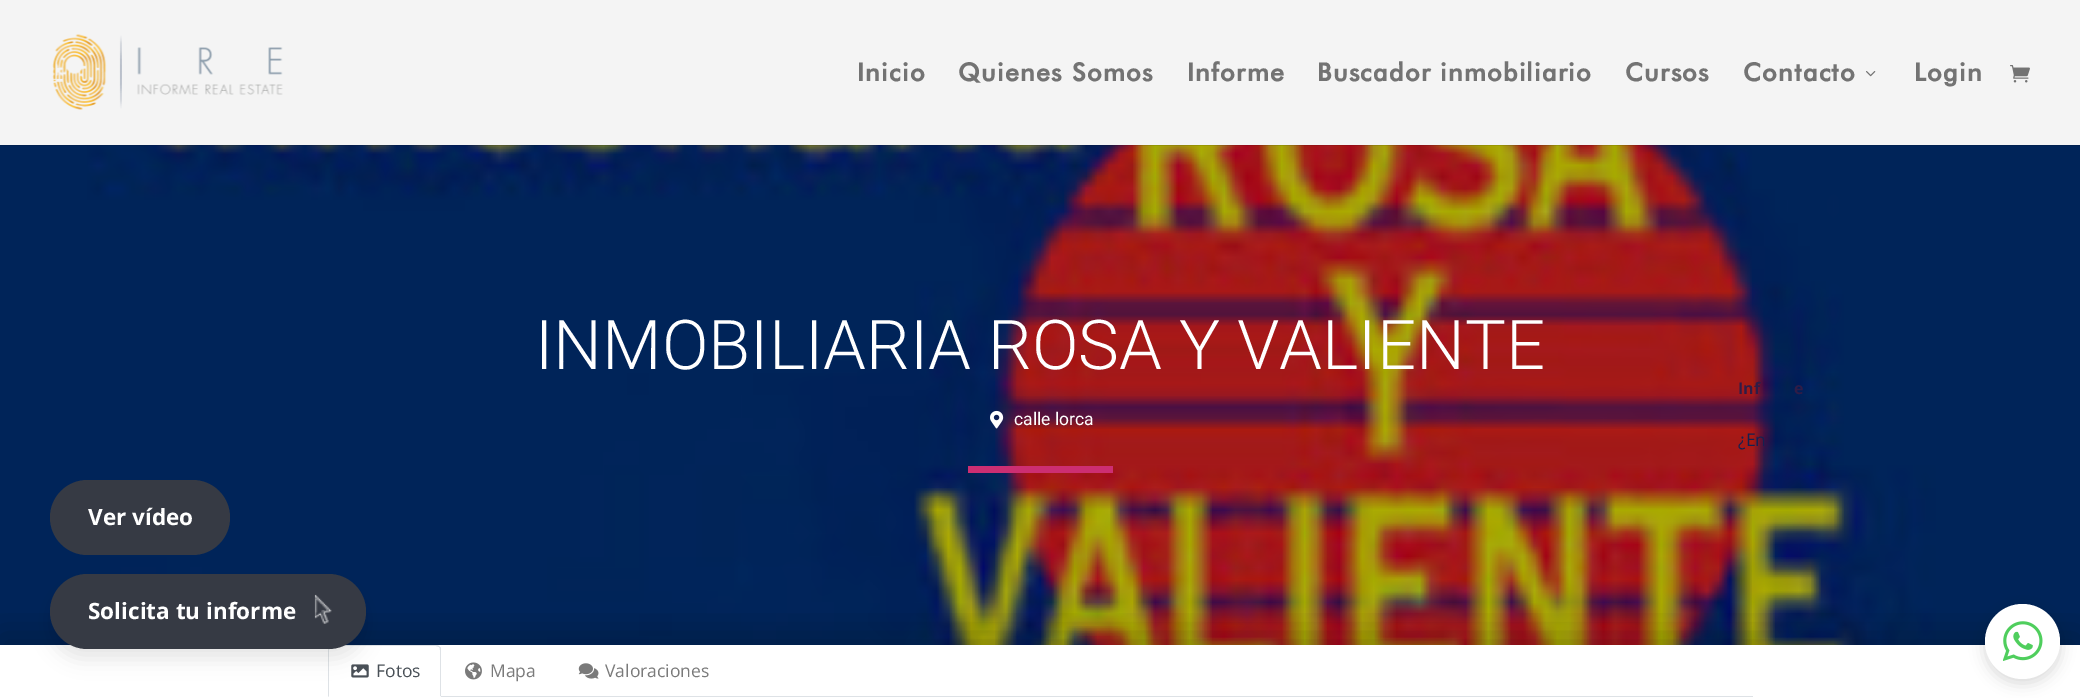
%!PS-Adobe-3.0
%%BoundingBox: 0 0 2080 698
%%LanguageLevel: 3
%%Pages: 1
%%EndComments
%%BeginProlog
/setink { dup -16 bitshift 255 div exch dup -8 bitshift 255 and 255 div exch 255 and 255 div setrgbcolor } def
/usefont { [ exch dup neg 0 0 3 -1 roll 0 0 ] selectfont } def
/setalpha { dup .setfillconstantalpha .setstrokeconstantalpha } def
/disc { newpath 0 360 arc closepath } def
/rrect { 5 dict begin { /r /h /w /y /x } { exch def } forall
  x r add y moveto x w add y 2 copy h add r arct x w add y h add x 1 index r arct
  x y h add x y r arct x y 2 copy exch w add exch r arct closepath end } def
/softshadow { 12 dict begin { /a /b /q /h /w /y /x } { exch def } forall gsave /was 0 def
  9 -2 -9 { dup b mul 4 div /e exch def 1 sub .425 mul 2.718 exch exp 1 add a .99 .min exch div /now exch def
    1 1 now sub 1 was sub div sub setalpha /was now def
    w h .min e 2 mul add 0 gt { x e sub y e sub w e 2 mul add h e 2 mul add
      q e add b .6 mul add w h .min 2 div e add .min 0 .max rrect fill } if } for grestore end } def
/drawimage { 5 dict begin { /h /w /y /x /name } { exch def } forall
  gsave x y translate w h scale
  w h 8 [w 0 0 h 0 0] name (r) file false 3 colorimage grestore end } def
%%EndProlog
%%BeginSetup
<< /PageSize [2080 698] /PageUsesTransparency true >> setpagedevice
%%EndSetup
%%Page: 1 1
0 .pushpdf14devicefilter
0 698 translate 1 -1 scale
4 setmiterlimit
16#FFFFFF setink
0 0 2080 698 rectfill
(img4.raw) 0 145 2080 500 drawimage
gsave
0 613 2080 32 rectclip
16#000000 setink
0 635 2080 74 0 17.5 0.2 softshadow
grestore
16#DEE2E6 setink
332 645 moveto 331 645 330 646 329 647 curveto 330 647 lineto 332 646 lineto 436 646 lineto 439 647 lineto 440 647 lineto 439 646 438 645 436 645 curveto closepath fill
440 647 moveto 441 647 441 649 441 650 curveto 441 697 lineto 440 696 lineto 440 650 lineto 440 649 440 648 439 647 curveto closepath fill
16#FFFFFF setink
328 698 moveto 329 696 lineto 440 696 lineto 441 697 lineto closepath fill
16#DEE2E6 setink
329 647 moveto 328 647 328 649 328 650 curveto 328 697 lineto 329 696 lineto 329 650 lineto 330 647 lineto closepath fill
(img6.raw) 351 664 18 14 drawimage
16#000000 setink
50 584 316 75 37.5 9.5 0.1 softshadow
16#363A44 setink
50 480 180 75 37.5 rrect fill
/OpenSans-Bold 22.5 usefont
16#FFFFFF setink
88 525 moveto (Ver vídeo) show
0.1 setalpha
16#000000 setink
0 145 2080 1 rectfill
1 setalpha
16#F4F4F4 setink
0 0 2080 145 rectfill
(img1.raw) 52 34 231 76 drawimage
/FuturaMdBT-Bold 25 usefont
16#737373 setink
857 81 moveto 1.25 0 (Inicio) ashow
958 81 moveto 1.25 0 (Quienes Somos) ashow
1187 81 moveto 1.25 0 (Informe) ashow
1317 81 moveto 1.25 0 (Buscador inmobiliario) ashow
1625 81 moveto 1.25 0 (Cursos) ashow
1743 81 moveto 1.25 0 (Contacto) ashow
(img2.raw) 1866 71 10 6 drawimage
1914 81 moveto 1.25 0 (Login) ashow
(img3.raw) 2010 65 20 18 drawimage
/Roboto-Light 68.75 usefont
16#FFFFFF setink
535 369 moveto (INMOBILIARIA ROSA Y VALIENTE) show
(img5.raw) 990 410 14 19 drawimage
/Roboto-Regular 17.5 usefont
1014 425 moveto (calle lorca) show
16#CC2E72 setink
968 466 145 7 rectfill
16#DEE2E6 setink
441 696 1312 1 rectfill
/OpenSans-Regular 17.5 usefont
16#495057 setink
376 677 moveto (Fotos) show
(img7.raw) 465 662 17 18 drawimage
16#7A7A7A setink
490 677 moveto (Mapa) show
(img8.raw) 578 663 21 16 drawimage
605 677 moveto (Valoraciones) show
/OpenSans-Bold 16 usefont
16#301C46 setink
1738 394 moveto (Inf) show
1794 394 moveto (e) show
/OpenSans-Regular 17.5 usefont
16#152050 setink
1738 446 moveto (¿En) show
16#000000 setink
1985 608 75 75 37.5 7.5 0.15 softshadow
16#FFFFFF setink
2022.5 641.5 37.5 disc fill
(img9.raw) 2003 621 40 40 drawimage
16#363A44 setink
50 574 316 75 37.5 rrect fill
/OpenSans-Bold 22.5 usefont
16#FFFFFF setink
88 619 moveto (Solicita tu informe) show
(img10.raw) 314 594 18 30 drawimage
.poppdf14devicefilter showpage
%%EOF
